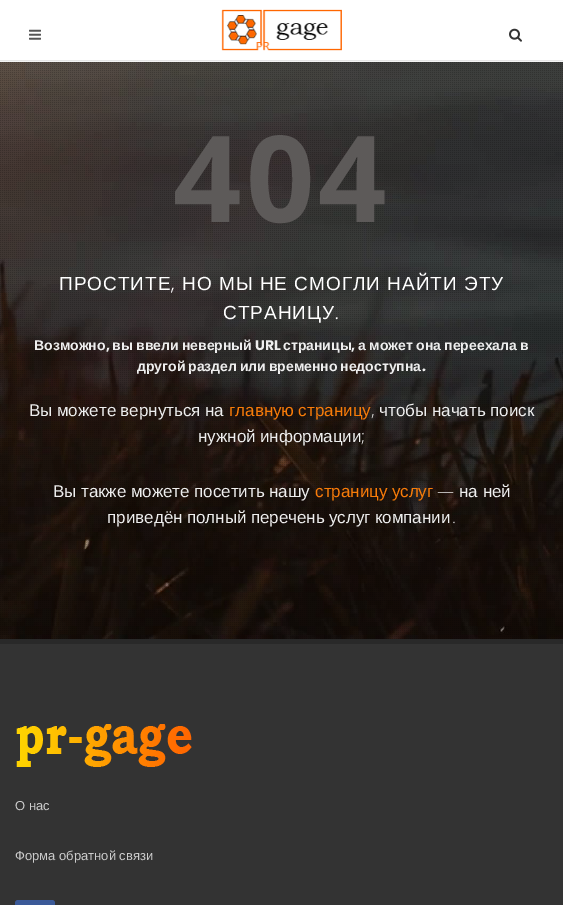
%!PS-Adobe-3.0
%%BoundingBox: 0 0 563 905
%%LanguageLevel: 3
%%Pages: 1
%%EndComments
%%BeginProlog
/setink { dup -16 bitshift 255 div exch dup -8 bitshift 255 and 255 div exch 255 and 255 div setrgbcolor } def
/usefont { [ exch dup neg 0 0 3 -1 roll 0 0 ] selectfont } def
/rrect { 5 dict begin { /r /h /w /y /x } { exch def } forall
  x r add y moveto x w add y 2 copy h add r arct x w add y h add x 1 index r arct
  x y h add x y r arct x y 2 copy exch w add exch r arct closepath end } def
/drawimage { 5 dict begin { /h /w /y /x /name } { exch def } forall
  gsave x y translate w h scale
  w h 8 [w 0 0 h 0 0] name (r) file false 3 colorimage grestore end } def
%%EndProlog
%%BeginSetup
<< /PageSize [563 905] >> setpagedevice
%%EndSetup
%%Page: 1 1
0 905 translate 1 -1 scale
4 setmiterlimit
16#FFFFFF setink
0 0 563 905 rectfill
16#F5F5F5 setink
0 61 563 1 rectfill
16#E6E6E6 setink
0 60 563 1 rectfill
(img1.raw) 29 29 12 11 drawimage
(img2.raw) 221 9 121 42 drawimage
(img3.raw) 509 28 13 14 drawimage
(img4.raw) 0 62 563 577 drawimage
(img5.raw) 0 62 563 577 drawimage
/OpenSans-Bold 120 usefont
16#5D5A59 setink
173 222 moveto 4 0 (404) ashow
/LiberationSans-Regular 19 usefont
16#FFFFFF setink
59 290 moveto 1 0 (ПРОСТИТЕ) ashow
/Poppins-Light 19 usefont
171 290 moveto 1 0 (,) ashow
/LiberationSans-Regular 19 usefont
182 290 moveto 1 0 (НО МЫ НЕ СМОГЛИ НАЙТИ ЭТУ) ashow
223 319 moveto 1 0 (СТРАНИЦУ) ashow
/Poppins-Light 19 usefont
335 319 moveto 1 0 (.) ashow
/LiberationSans-Bold 14 usefont
16#EEEEEE setink
34 350 moveto (Возможно) show
/Poppins-Bold 14 usefont
106 350 moveto (,) show
/LiberationSans-Bold 14 usefont
112 350 moveto -0.5 0 32 (вы ввели неверный) widthshow
/Poppins-Bold 14 usefont
255 350 moveto (URL) show
/LiberationSans-Bold 14 usefont
283 350 moveto (страницы) show
/Poppins-Bold 14 usefont
351 350 moveto (,) show
/LiberationSans-Bold 14 usefont
358 350 moveto -0.5 0 32 (а может она переехала в) widthshow
137 371 moveto -1 0 32 (другой раздел или временно недоступна) widthshow
/Poppins-Bold 14 usefont
422 371 moveto (.) show
/LiberationSans-Regular 17 usefont
29 416 moveto -0.5 0 32 (Вы можете вернуться на) widthshow
16#F87C09 setink
229 416 moveto -0.5 0 32 (главную страницу) widthshow
/OpenSans-Light 17 usefont
16#EEEEEE setink
371 416 moveto (,) show
/LiberationSans-Regular 17 usefont
379 416 moveto (чтобы начать поиск) show
198 442 moveto -0.5 0 32 (нужной информации) widthshow
/OpenSans-Light 17 usefont
361 442 moveto (;) show
/LiberationSans-Regular 17 usefont
53 497 moveto -0.5 0 32 (Вы также можете посетить нашу) widthshow
16#F87C09 setink
315 497 moveto -0.5 0 32 (страницу услуг) widthshow
/OpenSans-Light 17 usefont
16#EEEEEE setink
437 497 moveto (—) show
/LiberationSans-Regular 17 usefont
459 497 moveto (на ней) show
107 523 moveto -0.5 0 32 (приведён полный перечень услуг компании) widthshow
/OpenSans-Light 17 usefont
452 523 moveto (.) show
16#333333 setink
0 644 563 261 rectfill
16#292929 setink
0 639 563 5 rectfill
(img6.raw) 16 724 176 43 drawimage
/LiberationSans-Regular 13 usefont
16#CCCCCC setink
15 810 moveto (О нас) show
15 860 moveto (Форма обратной связи) show
16#3B5998 setink
15 900 40 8 3 rrect fill
showpage
%%EOF
